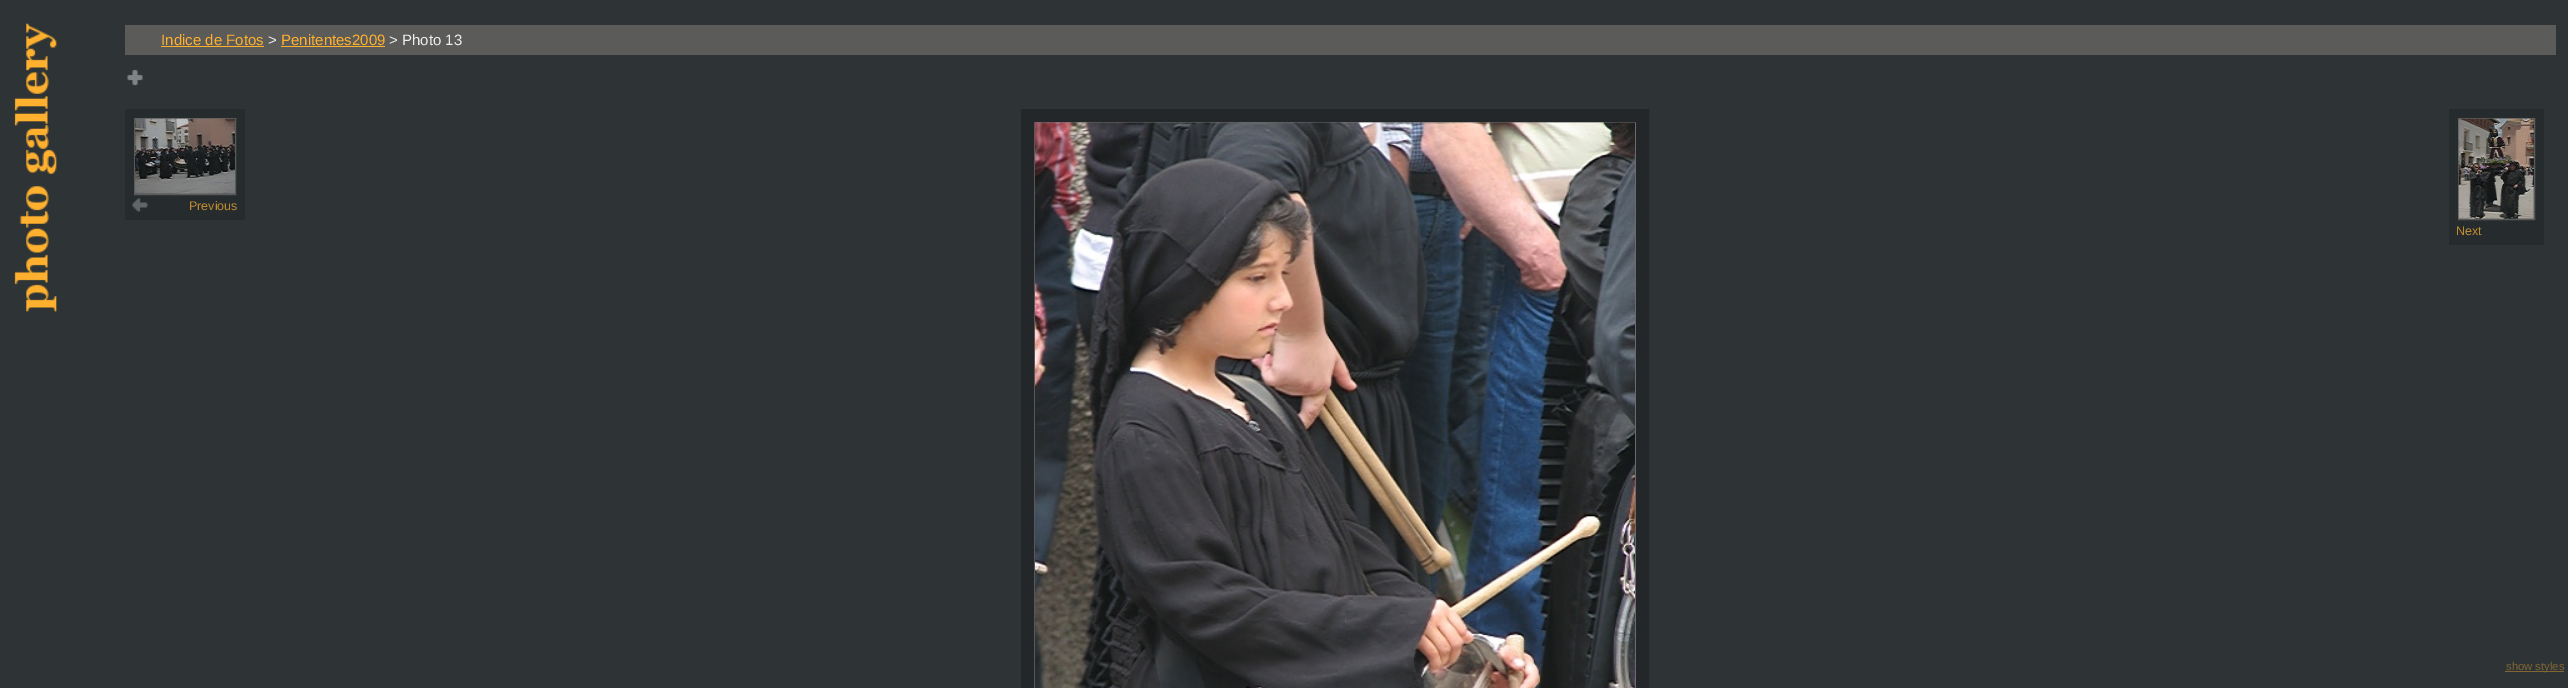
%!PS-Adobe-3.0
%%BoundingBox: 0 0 2568 688
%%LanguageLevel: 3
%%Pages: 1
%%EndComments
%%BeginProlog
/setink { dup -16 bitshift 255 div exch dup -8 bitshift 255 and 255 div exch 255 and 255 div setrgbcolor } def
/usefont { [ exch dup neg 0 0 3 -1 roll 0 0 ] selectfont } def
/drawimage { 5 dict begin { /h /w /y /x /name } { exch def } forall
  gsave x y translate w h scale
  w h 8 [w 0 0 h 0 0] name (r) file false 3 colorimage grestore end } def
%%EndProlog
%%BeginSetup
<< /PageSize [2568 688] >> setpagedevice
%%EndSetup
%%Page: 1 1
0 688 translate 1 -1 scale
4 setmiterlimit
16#2E3436 setink
0 0 2568 688 rectfill
(img1.raw) 14 23 43 289 drawimage
16#5B5C59 setink
125 25 2431 30 rectfill
/LiberationSans-Regular 15 usefont
16#FFB02F setink
161 45 moveto (Indice de Fotos) show
161 46 103 1 rectfill
16#EEEEEC setink
268 45 moveto (>) show
16#FFB02F setink
281 45 moveto (Penitentes2009) show
281 46 104 1 rectfill
16#EEEEEC setink
389 45 moveto (> Photo 13) show
(img2.raw) 127 69 16 17 drawimage
16#262B2D setink
125 109 120 111 rectfill
(img3.raw) 132 197 16 15 drawimage
16#595B5A setink
134.5 118.5 101 76 rectstroke
(img4.raw) 135 118 100 76 drawimage
/LiberationSans-Regular 12.5 usefont
16#C08B31 setink
189 210 moveto (Previous) show
16#6B6C69 setink
1027.5 115.5 moveto 1642.5 115.5 lineto 1642.5 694.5 lineto 1027.5 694.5 lineto closepath gsave fill grestore
16#232729 setink
13 setlinewidth
stroke
(img5.raw) 1035 122 600 566 drawimage
16#262B2D setink
2449 109 95 136 rectfill
16#595B5A setink
1 setlinewidth
2458.5 118.5 76 101 rectstroke
(img6.raw) 2458 118 76 101 drawimage
16#C08B31 setink
2456 235 moveto (Next) show
16#826633 setink
2505 671 59 1 rectfill
/LiberationSans-Regular 11.25 usefont
2506 670 moveto (show styles) show
showpage
%%EOF
